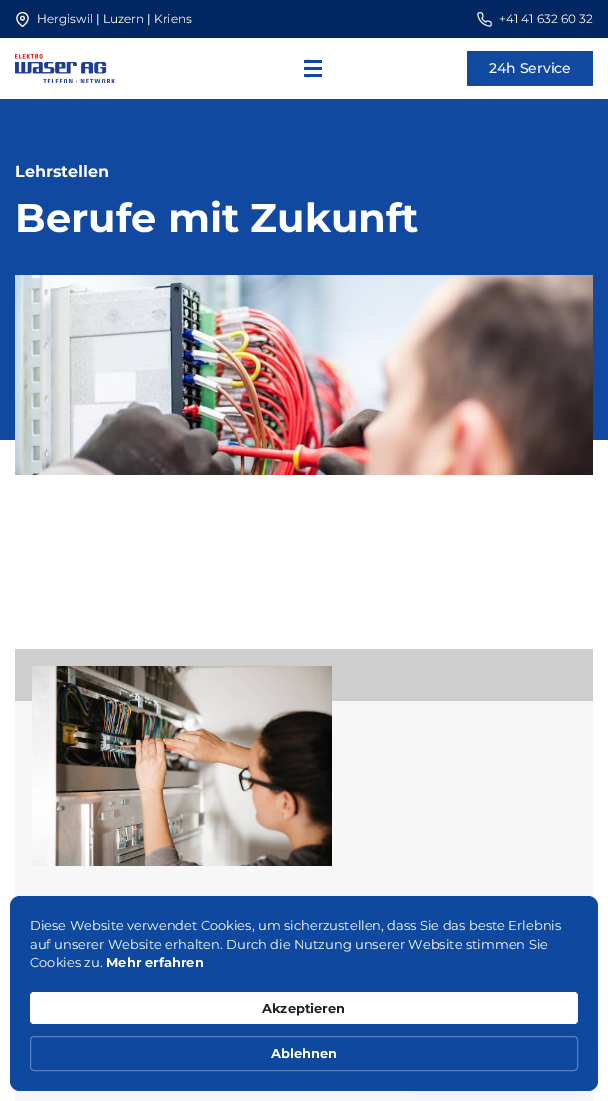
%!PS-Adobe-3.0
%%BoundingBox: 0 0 608 1101
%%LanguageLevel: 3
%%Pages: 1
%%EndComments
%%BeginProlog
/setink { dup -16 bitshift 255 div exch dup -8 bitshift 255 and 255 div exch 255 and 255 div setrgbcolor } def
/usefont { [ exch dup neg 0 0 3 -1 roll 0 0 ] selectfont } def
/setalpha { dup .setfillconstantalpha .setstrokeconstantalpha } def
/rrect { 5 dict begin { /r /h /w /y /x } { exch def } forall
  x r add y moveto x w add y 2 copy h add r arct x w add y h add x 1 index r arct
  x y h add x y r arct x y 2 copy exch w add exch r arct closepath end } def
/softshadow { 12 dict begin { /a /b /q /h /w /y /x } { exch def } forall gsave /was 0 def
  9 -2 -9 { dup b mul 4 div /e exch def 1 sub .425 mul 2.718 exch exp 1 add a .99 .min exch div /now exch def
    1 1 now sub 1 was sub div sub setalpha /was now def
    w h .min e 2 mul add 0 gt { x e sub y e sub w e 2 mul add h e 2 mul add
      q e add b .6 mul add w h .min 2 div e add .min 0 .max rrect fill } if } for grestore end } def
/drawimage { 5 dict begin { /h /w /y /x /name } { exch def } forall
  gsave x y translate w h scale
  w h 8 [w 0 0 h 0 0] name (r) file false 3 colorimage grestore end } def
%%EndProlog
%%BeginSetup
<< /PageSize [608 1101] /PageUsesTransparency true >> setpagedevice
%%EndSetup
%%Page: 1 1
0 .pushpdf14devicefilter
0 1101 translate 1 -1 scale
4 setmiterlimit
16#FFFFFF setink
0 0 608 1101 rectfill
16#002762 setink
0 0 608 38 rectfill
(img1.raw) 16 12 13 15 drawimage
/Montserrat-Regular 12 usefont
16#FFFFFF setink
37 23 moveto (Hergiswil | Luzern | Kriens) show
(img2.raw) 477 12 15 15 drawimage
499 23 moveto (+41 41 632 60 32) show
(img3.raw) 15 54 100 29 drawimage
(img4.raw) 304 59 18 19 drawimage
16#10499F setink
467 51 126 35 rectfill
/Montserrat-Medium 14 usefont
16#FFFFFF setink
489 73 moveto (24h Service) show
16#10499F setink
0 99 608 341 rectfill
/Montserrat-Bold 16 usefont
16#FFFFFF setink
15 177 moveto (Lehrstellen) show
/Montserrat-Bold 40 usefont
15 232 moveto (Berufe mit Zukunft) show
(img5.raw) 15 275 578 200 drawimage
16#F7F7F7 setink
15 701 578 400 rectfill
16#CFCECE setink
15 649 578 52 rectfill
(img6.raw) 32 666 300 200 drawimage
16#000000 setink
403 1045 185 40 20 6 0.3 softshadow
16#0F499F setink
10 896 588 195 10 rrect fill
/Montserrat-Regular 13 usefont
16#FFFFFF setink
[
    [(Diese Website verwendet Cookies, um sicherzustellen, dass Sie das beste Erlebnis) 30 930]
    [(auf unserer Website erhalten. Durch die Nutzung unserer Website stimmen Sie) 30 949]
    [(Cookies zu.) 30 967]
] { aload pop moveto show } forall
/Montserrat-Bold 13 usefont
106 967 moveto (Mehr erfahren) show
30 992 548 32 4 rrect fill
16#1D2129 setink
262 1013 moveto (Akzeptieren) show
16#5780BC setink
30.5 1036.5 547 34 3.5 rrect stroke
16#FFFFFF setink
271 1058 moveto (Ablehnen) show
.poppdf14devicefilter showpage
%%EOF
